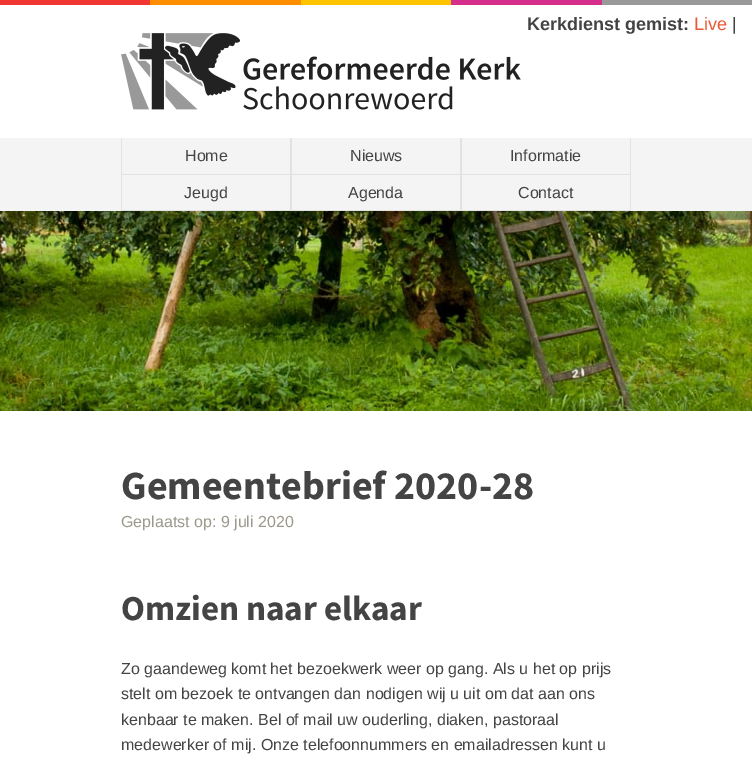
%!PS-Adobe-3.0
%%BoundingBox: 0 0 752 766
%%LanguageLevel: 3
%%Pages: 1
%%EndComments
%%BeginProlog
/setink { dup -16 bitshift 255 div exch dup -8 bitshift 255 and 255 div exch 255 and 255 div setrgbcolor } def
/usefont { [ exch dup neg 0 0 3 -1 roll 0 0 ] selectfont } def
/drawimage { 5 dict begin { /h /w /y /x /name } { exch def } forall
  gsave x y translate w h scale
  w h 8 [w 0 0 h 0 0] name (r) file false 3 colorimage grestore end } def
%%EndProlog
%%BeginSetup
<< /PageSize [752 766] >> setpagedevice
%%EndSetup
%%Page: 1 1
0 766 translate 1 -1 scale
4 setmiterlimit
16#FFFFFF setink
0 0 752 766 rectfill
[
    [0 0 150 5 16#F03532]
    [150 0 151 5 16#FF8D00]
    [301 0 150 5 16#FFC400]
    [451 0 151 5 16#D62E8B]
    [602 0 150 5 16#999999]
] { aload pop setink rectfill } forall
/LiberationSans-Bold 18 usefont
16#444444 setink
527 30 moveto (Kerkdienst gemist:) show
/LiberationSans-Regular 18 usefont
16#EB5A35 setink
694 30 moveto (Live) show
16#444444 setink
732 30 moveto (|) show
(img1.raw) 121 33 400 77 drawimage
[
    [0 138 752 73 16#F4F4F4]
    [290 138 1 73 16#E2E2E2]
    [121 174 170 1 16#E2E2E2]
    [121 138 1 37 16#E2E2E2]
] { aload pop setink rectfill } forall
/LiberationSans-Regular 16 usefont
16#444444 setink
185 161 moveto (Home) show
[
    [460 138 1 73 16#E2E2E2]
    [291 174 170 1 16#E2E2E2]
    [291 138 1 37 16#E2E2E2]
] { aload pop setink rectfill } forall
16#444444 setink
350 161 moveto (Nieuws) show
[
    [630 138 1 73 16#E2E2E2]
    [461 174 170 1 16#E2E2E2]
    [461 138 1 37 16#E2E2E2]
] { aload pop setink rectfill } forall
16#444444 setink
510 161 moveto (Informatie) show
16#E2E2E2 setink
121 210 510 1 rectfill
121 175 1 36 rectfill
16#444444 setink
184 198 moveto (Jeugd) show
16#E2E2E2 setink
291 175 1 36 rectfill
16#444444 setink
348 198 moveto (Agenda) show
16#E2E2E2 setink
461 175 1 36 rectfill
16#444444 setink
518 198 moveto (Contact) show
(img2.raw) 0 211 752 200 drawimage
/SourceSansPro-Bold 40 usefont
121 499 moveto (Gemeentebrief 2020-28) show
/LiberationSans-Regular 16 usefont
16#9E998D setink
121 527 moveto (Geplaatst op: 9 juli 2020) show
/SourceSansPro-Bold 35 usefont
16#444444 setink
121 620 moveto (Omzien naar elkaar) show
/LiberationSans-Regular 16 usefont
[
    [(Zo gaandeweg komt het bezoekwerk weer op gang. Als u het op prijs) 121 674]
    [(stelt om bezoek te ontvangen dan nodigen wij u uit om dat aan ons) 121 699]
    [(kenbaar te maken. Bel of mail uw ouderling, diaken, pastoraal) 121 725]
    [(medewerker of mij. Onze telefoonnummers en emailadressen kunt u) 121 750]
] { aload pop moveto show } forall
showpage
%%EOF
